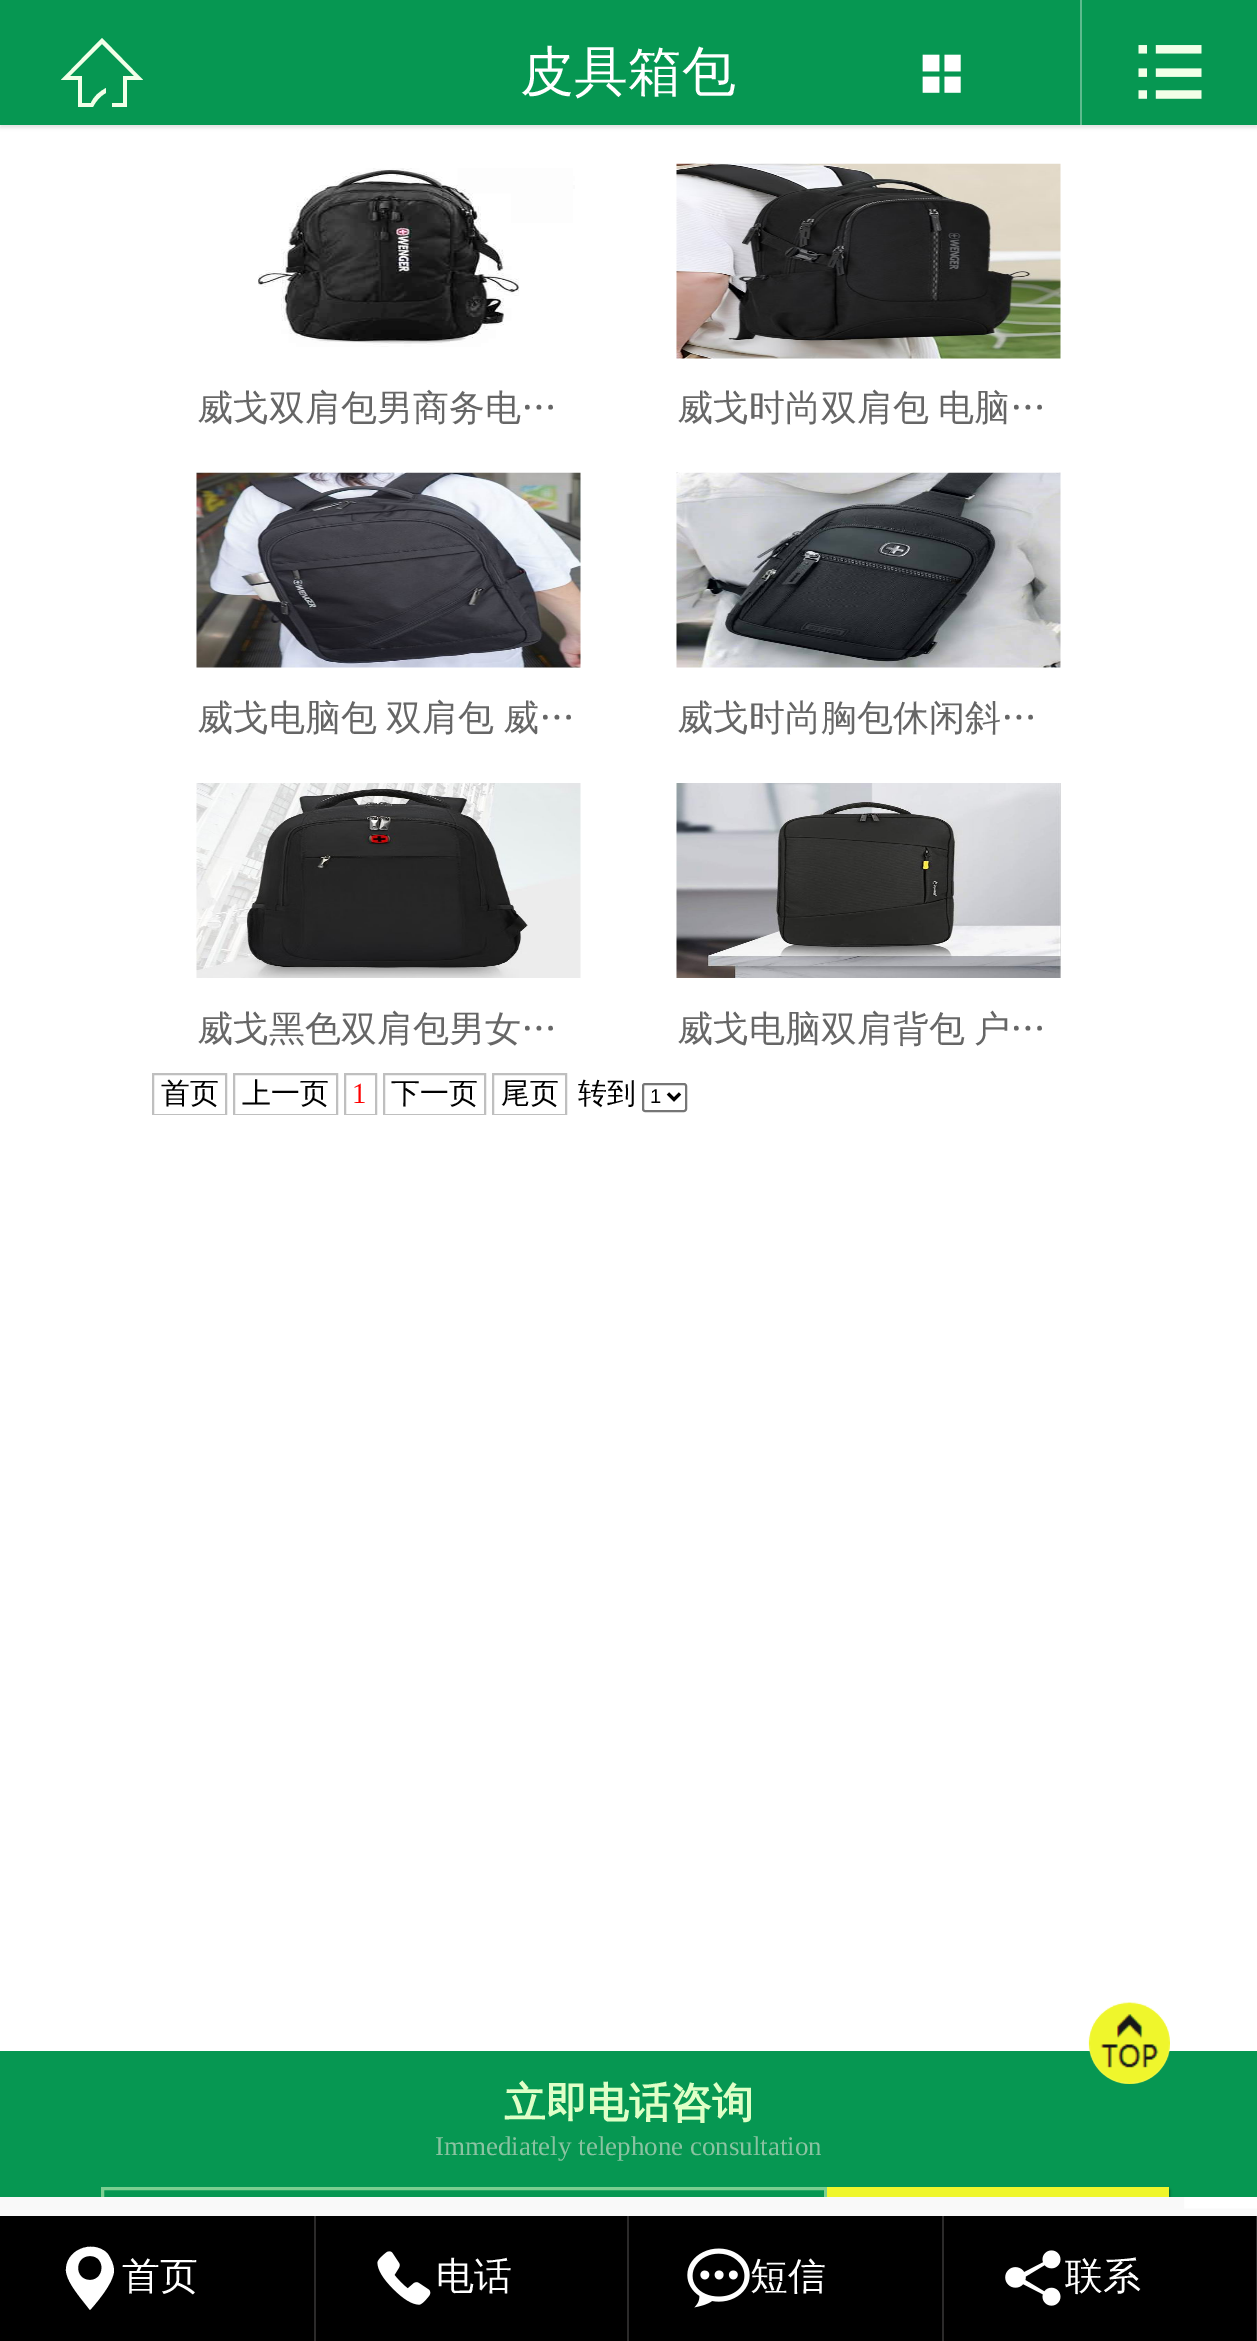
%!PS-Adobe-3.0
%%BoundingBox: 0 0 1257 2341
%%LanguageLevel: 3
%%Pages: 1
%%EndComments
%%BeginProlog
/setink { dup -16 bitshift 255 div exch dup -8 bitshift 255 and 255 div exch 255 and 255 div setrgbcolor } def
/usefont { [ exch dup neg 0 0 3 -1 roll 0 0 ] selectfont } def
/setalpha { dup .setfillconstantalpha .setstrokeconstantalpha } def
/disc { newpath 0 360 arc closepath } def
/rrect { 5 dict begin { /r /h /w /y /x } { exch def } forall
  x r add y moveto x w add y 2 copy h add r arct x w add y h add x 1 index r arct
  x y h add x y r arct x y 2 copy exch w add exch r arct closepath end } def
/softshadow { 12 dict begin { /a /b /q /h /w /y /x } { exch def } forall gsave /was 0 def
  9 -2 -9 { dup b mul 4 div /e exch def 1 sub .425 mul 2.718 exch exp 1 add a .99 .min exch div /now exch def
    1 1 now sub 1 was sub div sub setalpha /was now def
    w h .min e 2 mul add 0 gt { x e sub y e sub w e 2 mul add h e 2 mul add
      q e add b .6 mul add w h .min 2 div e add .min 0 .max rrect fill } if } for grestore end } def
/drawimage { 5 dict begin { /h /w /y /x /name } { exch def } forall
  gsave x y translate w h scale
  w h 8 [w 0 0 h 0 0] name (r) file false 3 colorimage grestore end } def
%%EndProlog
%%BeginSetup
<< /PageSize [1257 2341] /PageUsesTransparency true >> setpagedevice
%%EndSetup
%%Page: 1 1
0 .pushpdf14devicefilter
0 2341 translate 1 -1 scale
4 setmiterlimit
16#FFFFFF setink
0 0 1257 2341 rectfill
16#090204 setink
0 3 1257 125 0 1.5 0.1 softshadow
16#069752 setink
0 0 1257 125 rectfill
16#F2FFE8 setink
102 38 moveto 61 80 lineto 78 80 lineto 78 107 lineto 93 107 lineto 96 101 100 96 106 93 curveto 106 88 lineto 99 92 94 96 91 103 curveto 82 103 lineto 82 76 lineto 70 76 lineto 102 44 lineto 134 76 lineto 123 76 lineto 123 103 lineto 112 103 lineto 112 107 lineto 127 107 lineto 127 80 lineto 143 80 lineto closepath fill
/WenQuanYiZenHei-Medium 54 usefont
16#FFFFFF setink
520 90 moveto (皮具箱包) show
(img1.raw) 922 54 39 39 drawimage
16#5DBB8E setink
1080 0 2 125 rectfill
(img2.raw) 1138 45 64 54 drawimage
(img3.raw) 258 168 317 179 drawimage
/WenQuanYiZenHei-Medium 36 usefont
16#666666 setink
197 420 moveto (威戈双肩包男商务电…) show
(img4.raw) 676 163 385 196 drawimage
677 420 moveto -2 0 32 (威戈时尚双肩包 电脑…) widthshow
(img5.raw) 196 472 385 196 drawimage
197 730 moveto -2 0 32 (威戈电脑包 双肩包 威…) widthshow
(img6.raw) 676 472 385 196 drawimage
677 730 moveto -2 0 32 (威戈时尚胸包休闲斜…) widthshow
(img7.raw) 196 783 385 195 drawimage
197 1041 moveto (威戈黑色双肩包男女…) show
(img8.raw) 676 783 385 195 drawimage
677 1041 moveto -2 0 32 (威戈电脑双肩背包 户…) widthshow
gsave
149 144 960 971 rectclip
16#BFBFBF setink
2 setlinewidth
153 1074 73 41 rectstroke
grestore
/WenQuanYiZenHei-Medium 29 usefont
16#000000 setink
161 1103 moveto (首页) show
gsave
149 144 960 971 rectclip
16#BFBFBF setink
2 setlinewidth
234 1074 103 41 rectstroke
grestore
242 1103 moveto (上一页) show
gsave
149 144 960 971 rectclip
16#BFBFBF setink
2 setlinewidth
345 1074 31 41 rectstroke
grestore
/LiberationSerif-Regular 29 usefont
16#FF0000 setink
352 1103 moveto (1) show
gsave
149 144 960 971 rectclip
16#BFBFBF setink
2 setlinewidth
384 1074 101 41 rectstroke
grestore
/WenQuanYiZenHei-Medium 29 usefont
16#000000 setink
391 1103 moveto (下一页) show
gsave
149 144 960 971 rectclip
16#BFBFBF setink
2 setlinewidth
493 1074 73 41 rectstroke
grestore
501 1103 moveto (尾页) show
578 1103 moveto (转到) show
16#767676 setink
2 setlinewidth
643 1084 43 27 2 rrect stroke
16#000000 setink
3 setlinewidth
668 1093.5 moveto 674 1099.5 lineto 680 1093.5 lineto stroke
/LiberationSans-Regular 20 usefont
650 1103 moveto (1) show
16#069752 setink
0 2051 1257 146 rectfill
16#EFF62C setink
1129.5 2043.5 40.5 disc fill
(img9.raw) 1088 2002 82 82 drawimage
/WenQuanYiZenHei-Bold 41.5 usefont
16#DFFFC7 setink
504 2117 moveto (立即电话咨询) show
/LiberationSerif-Regular 27 usefont
16#8AC3A1 setink
435 2155 moveto (Immediately telephone consultation) show
16#040404 setink
827 2190 342 108 0 1.5 0.7 softshadow
16#7BCF91 setink
102.5 2188.5 723 105 rectstroke
16#EFF62C setink
827 2187 342 10 rectfill
(img10.raw) 0 2197 1257 19 drawimage
16#000000 setink
0 2216 1256 125 rectfill
16#2B2A2A setink
314 2216 2 125 rectfill
16#FFFFFF setink
107 2253 moveto 92 2239 65 2250 66 2271 curveto 67 2280 74 2289 79 2296 curveto 90 2310 lineto 98 2301 113 2283 114 2271 curveto 114 2265 111 2258 107 2253 curveto closepath 90 2280 moveto 74 2280 74 2256 90 2256 curveto 106 2256 105 2280 90 2280 curveto closepath fill
/WenQuanYiZenHei-Medium 38 usefont
122 2289 moveto (首页) show
16#2B2A2A setink
627 2216 2 125 rectfill
(img11.raw) 377 2251 54 54 drawimage
16#FFFFFF setink
436 2289 moveto (电话) show
16#2B2A2A setink
942 2216 2 125 rectfill
(img12.raw) 687 2248 63 60 drawimage
16#FFFFFF setink
750 2289 moveto (短信) show
16#2B2A2A setink
1256 2216 1 125 rectfill
(img13.raw) 1005 2250 56 56 drawimage
16#FFFFFF setink
1065 2289 moveto (联系) show
.poppdf14devicefilter showpage
%%EOF
